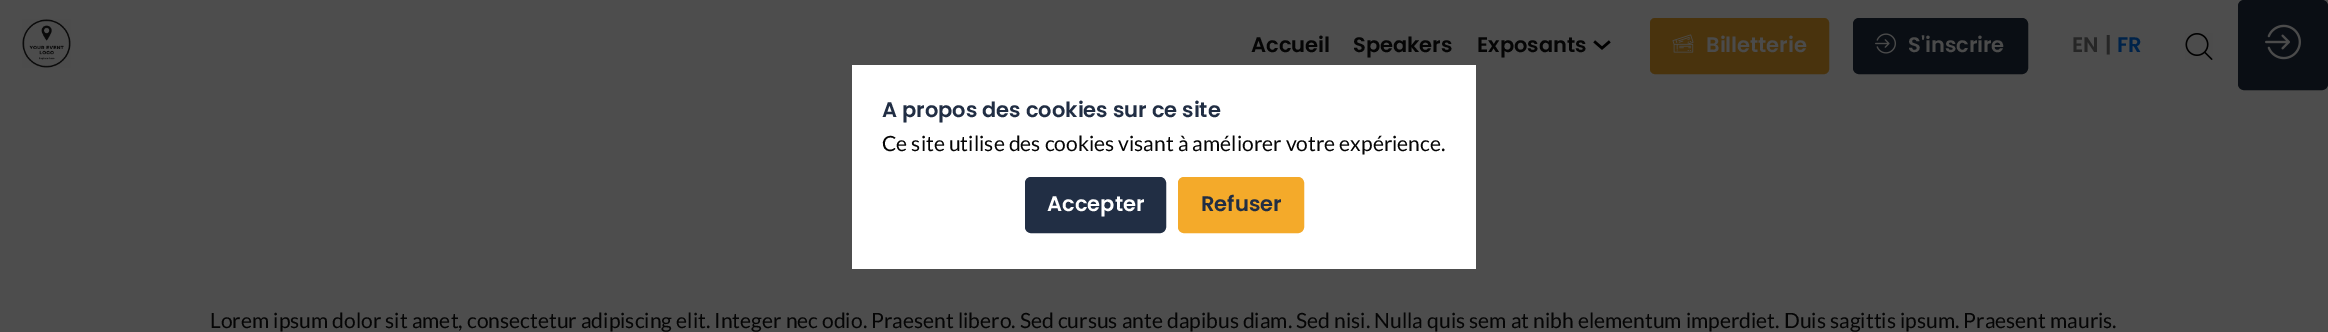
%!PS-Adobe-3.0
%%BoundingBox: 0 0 2328 332
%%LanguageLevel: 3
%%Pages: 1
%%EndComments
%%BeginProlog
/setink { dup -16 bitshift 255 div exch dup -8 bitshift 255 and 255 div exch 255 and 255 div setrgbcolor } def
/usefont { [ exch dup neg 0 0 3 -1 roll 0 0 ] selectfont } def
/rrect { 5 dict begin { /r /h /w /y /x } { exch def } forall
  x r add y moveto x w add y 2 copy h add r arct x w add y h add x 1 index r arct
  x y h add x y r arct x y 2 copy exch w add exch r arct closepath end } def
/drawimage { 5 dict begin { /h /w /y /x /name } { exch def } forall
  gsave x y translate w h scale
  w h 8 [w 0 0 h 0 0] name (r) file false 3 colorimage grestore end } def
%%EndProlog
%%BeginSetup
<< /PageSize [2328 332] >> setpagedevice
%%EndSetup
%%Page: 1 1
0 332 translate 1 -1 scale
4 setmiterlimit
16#4D4D4D setink
0 0 2328 332 rectfill
(img1.raw) 22 19 49 49 drawimage
/Poppins-SemiBold 21 usefont
16#050505 setink
[
    [(Accueil) 1251 52]
    [(Speakers) 1353 52]
    [(Exposants) 1477 52]
] { aload pop moveto show } forall
(img2.raw) 1593 40 18 10 drawimage
16#49330D setink
1651 19 177 54 4 rrect gsave fill grestore
2 setlinewidth
stroke
(img3.raw) 1672 34 22 19 drawimage
16#4B4B4B setink
1706 52 moveto (Billetterie) show
16#0A0E14 setink
1854 19 173 54 5 rrect gsave fill grestore
stroke
(img4.raw) 1875 33 21 21 drawimage
16#4B4B4B setink
1908 52 moveto (S'inscrire) show
16#262626 setink
2072 52 moveto (EN) show
2105 52 moveto (|) show
16#00234A setink
2117 52 moveto (FR) show
(img5.raw) 2185 33 28 27 drawimage
16#0A0E14 setink
2239 1 88 88 5 rrect gsave fill grestore
stroke
(img6.raw) 2265 24 36 36 drawimage
/Lato-Regular 21 usefont
16#050505 setink
210 328 moveto (Lorem ipsum dolor sit amet, consectetur adipiscing elit. Integer nec odio. Praesent libero. Sed cursus ante dapibus diam. Sed nisi. Nulla quis sem at nibh elementum imperdiet. Duis sagittis ipsum. Praesent mauris.) show
16#FFFFFF setink
852 65 624 204 rectfill
/Poppins-SemiBold 21 usefont
16#212E44 setink
882 117 moveto (A propos des cookies sur ce site) show
/Lato-Regular 21 usefont
16#050505 setink
882 151 moveto (Ce site utilise des cookies visant à améliorer votre expérience.) show
16#212E44 setink
1026 178 139 54 5 rrect gsave fill grestore
stroke
/Poppins-SemiBold 21 usefont
16#FFFFFF setink
1047 211 moveto (Accepter) show
16#F4AA2A setink
1179 178 124 54 5 rrect gsave fill grestore
stroke
16#212E44 setink
1201 211 moveto (Refuser) show
showpage
%%EOF
